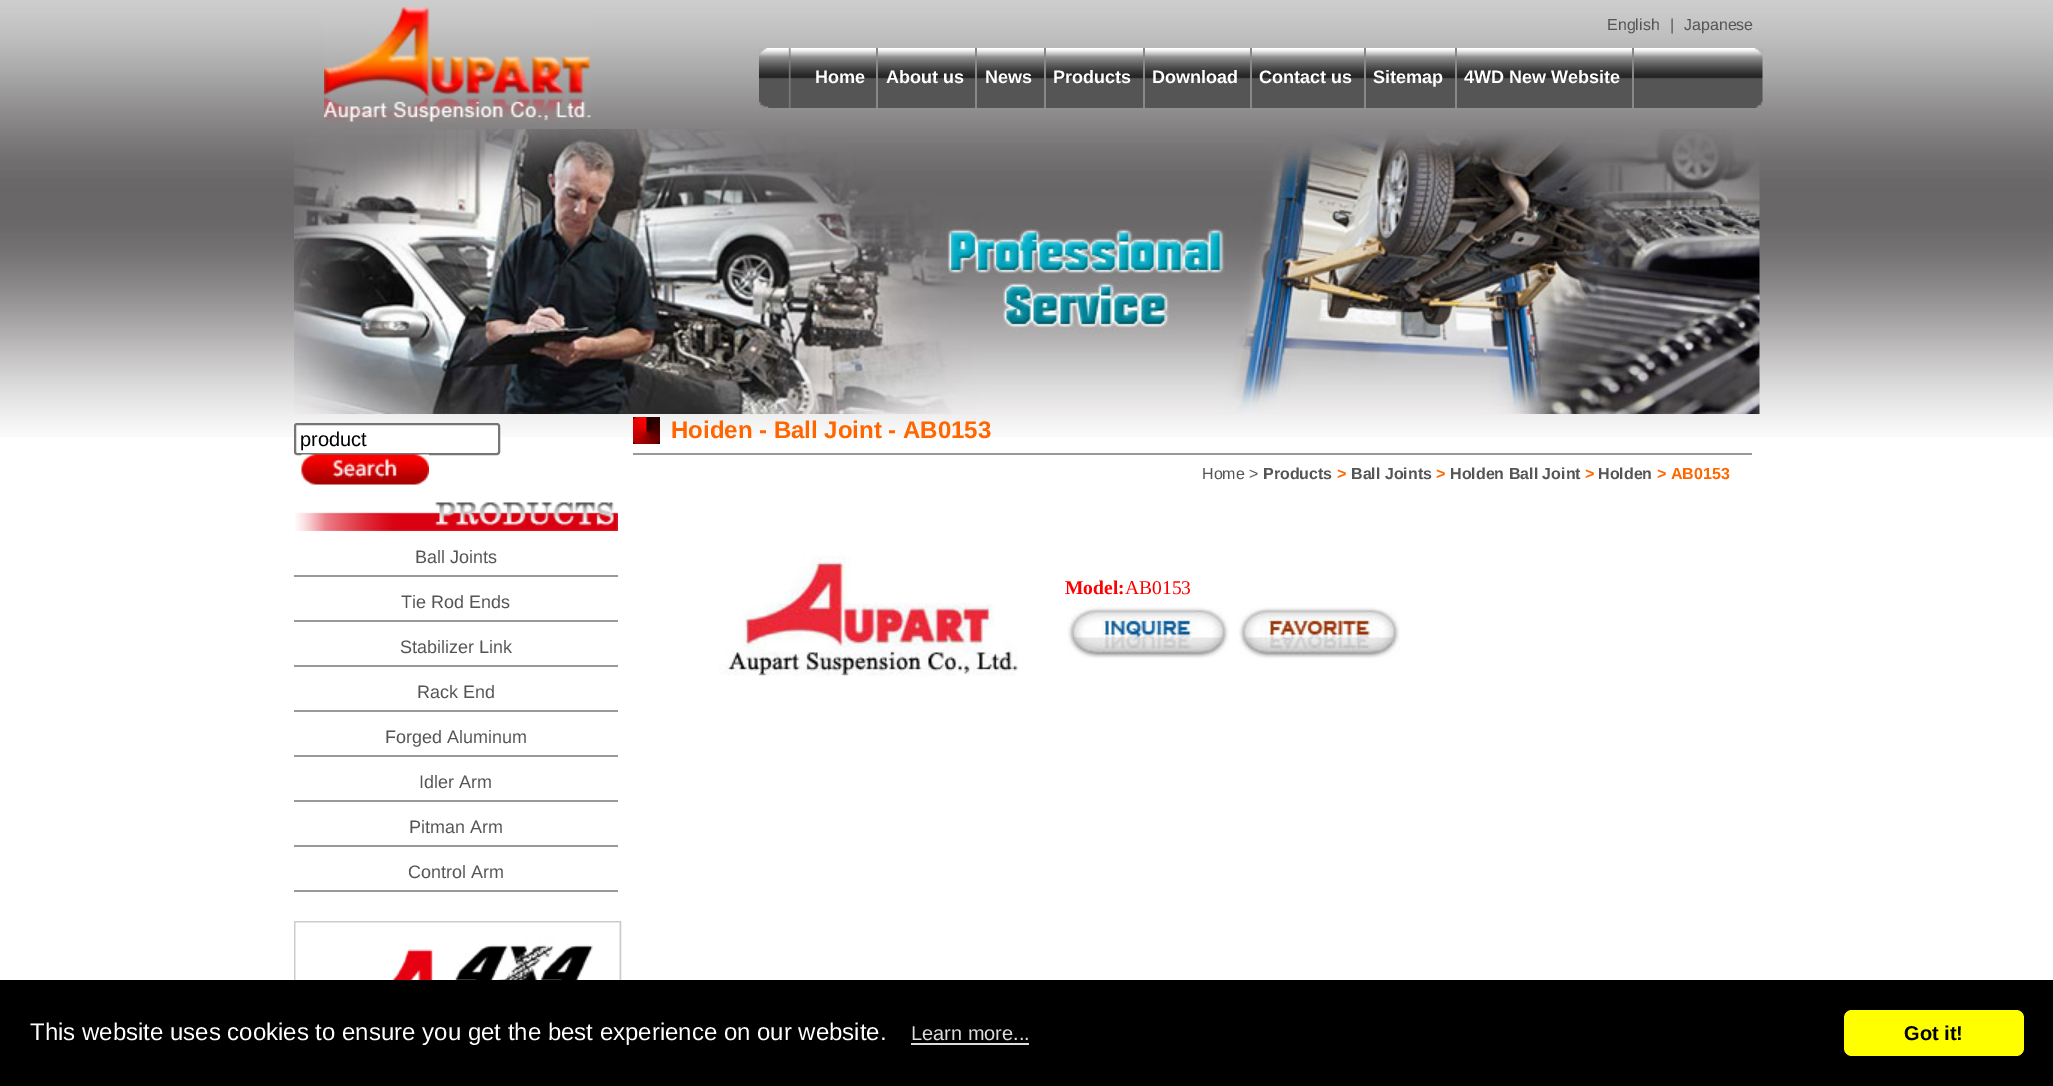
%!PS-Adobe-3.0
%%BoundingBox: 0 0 2053 1086
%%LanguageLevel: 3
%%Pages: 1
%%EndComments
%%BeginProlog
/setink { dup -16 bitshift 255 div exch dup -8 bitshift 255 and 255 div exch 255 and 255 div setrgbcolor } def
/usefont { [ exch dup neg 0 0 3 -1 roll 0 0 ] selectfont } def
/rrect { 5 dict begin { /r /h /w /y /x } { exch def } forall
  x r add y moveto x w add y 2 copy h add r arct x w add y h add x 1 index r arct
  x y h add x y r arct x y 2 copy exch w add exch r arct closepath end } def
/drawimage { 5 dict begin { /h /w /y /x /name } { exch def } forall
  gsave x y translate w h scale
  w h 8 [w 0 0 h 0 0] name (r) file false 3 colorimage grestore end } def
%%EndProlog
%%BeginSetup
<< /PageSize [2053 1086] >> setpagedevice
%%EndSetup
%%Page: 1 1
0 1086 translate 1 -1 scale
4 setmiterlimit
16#FFFFFF setink
0 0 2053 1086 rectfill
(img1.raw) 0 0 2053 437 drawimage
(img2.raw) 324 7 267 115 drawimage
/LiberationSans-Regular 16 usefont
16#555555 setink
[
    [(English) 1607 30]
    [(|) 1670 30]
    [(Japanese) 1684 30]
] { aload pop moveto show } forall
(img3.raw) 759 48 1004 60 drawimage
16#888888 setink
876 48 2 60 rectfill
/LiberationSans-Bold 18 usefont
16#FFFFFF setink
815 83 moveto (Home) show
16#888888 setink
975 48 2 60 rectfill
16#FFFFFF setink
886 83 moveto (About us) show
16#888888 setink
1044 48 2 60 rectfill
16#FFFFFF setink
985 83 moveto (News) show
16#888888 setink
1143 48 2 60 rectfill
16#FFFFFF setink
1053 83 moveto (Products) show
16#888888 setink
1250 48 2 60 rectfill
16#FFFFFF setink
1152 83 moveto (Download) show
16#888888 setink
1364 48 2 60 rectfill
16#FFFFFF setink
1259 83 moveto (Contact us) show
16#888888 setink
1455 48 2 60 rectfill
16#FFFFFF setink
1373 83 moveto (Sitemap) show
16#888888 setink
1632 48 2 60 rectfill
16#FFFFFF setink
1464 83 moveto (4WD New Website) show
(img4.raw) 294 129 1466 285 drawimage
295 424 204 30 2 rrect gsave fill grestore
16#767676 setink
2 setlinewidth
stroke
/LiberationSans-Regular 20 usefont
16#000000 setink
300 446 moveto (product) show
(img5.raw) 301 454 128 31 drawimage
(img6.raw) 295 502 323 29 drawimage
16#999999 setink
294 575 324 2 rectfill
/LiberationSans-Regular 18 usefont
16#555555 setink
415 563 moveto (Ball Joints) show
16#999999 setink
294 620 324 2 rectfill
16#555555 setink
401 608 moveto (Tie Rod Ends) show
16#999999 setink
294 665 324 2 rectfill
16#555555 setink
400 653 moveto (Stabilizer Link) show
16#999999 setink
294 710 324 2 rectfill
16#555555 setink
417 698 moveto (Rack End) show
16#999999 setink
294 755 324 2 rectfill
16#555555 setink
385 743 moveto (Forged Aluminum) show
16#999999 setink
294 800 324 2 rectfill
16#555555 setink
419 788 moveto (Idler Arm) show
16#999999 setink
294 845 324 2 rectfill
16#555555 setink
409 833 moveto (Pitman Arm) show
16#999999 setink
294 890 324 2 rectfill
16#555555 setink
408 878 moveto (Control Arm) show
16#CCCCCC setink
295 922 325 133 rectstroke
(img7.raw) 295 922 325 58 drawimage
(img8.raw) 633 417 27 27 drawimage
16#999999 setink
633 453 1119 2 rectfill
/LiberationSans-Bold 24 usefont
16#FF6600 setink
671 438 moveto (Hoiden - Ball Joint - AB0153) show
/LiberationSans-Regular 16 usefont
16#555555 setink
1202 479 moveto (Home >) show
/LiberationSans-Bold 16 usefont
1263 479 moveto (Products) show
16#FF6600 setink
1337 479 moveto (>) show
16#555555 setink
1351 479 moveto (Ball Joints) show
16#FF6600 setink
1436 479 moveto (>) show
16#555555 setink
1450 479 moveto (Holden Ball Joint) show
16#FF6600 setink
1585 479 moveto (>) show
16#555555 setink
1598 479 moveto (Holden) show
16#FF6600 setink
1657 479 moveto (> AB0153) show
(img9.raw) 719 555 300 121 drawimage
/LiberationSerif-Bold 19.5 usefont
16#FF0000 setink
1065 594 moveto (Model:) show
/LiberationSerif-Regular 19.5 usefont
1125 594 moveto (AB0153) show
(img10.raw) 1067 607 162 52 drawimage
(img11.raw) 1238 607 162 52 drawimage
16#000000 setink
0 980 2053 106 rectfill
/LiberationSans-Regular 24 usefont
16#FFFFFF setink
30 1040 moveto (This website uses cookies to ensure you get the best experience on our website.) show
/LiberationSans-Regular 20 usefont
16#DDDDDD setink
911 1040 moveto (Learn more...) show
911 1043 118 2 rectfill
16#FFFF00 setink
1844 1010 180 46 8 rrect fill
/LiberationSans-Bold 20 usefont
16#000000 setink
1904 1040 moveto (Got it!) show
showpage
%%EOF
